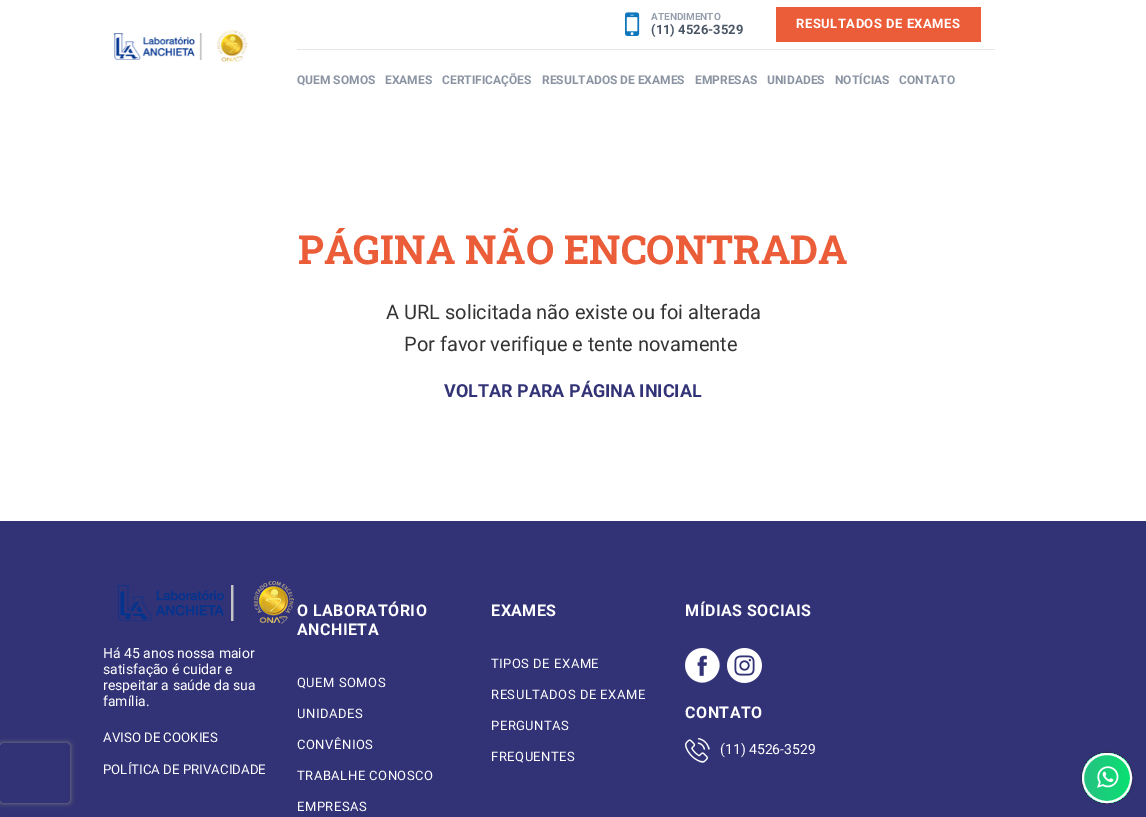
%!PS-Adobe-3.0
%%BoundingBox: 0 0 1146 817
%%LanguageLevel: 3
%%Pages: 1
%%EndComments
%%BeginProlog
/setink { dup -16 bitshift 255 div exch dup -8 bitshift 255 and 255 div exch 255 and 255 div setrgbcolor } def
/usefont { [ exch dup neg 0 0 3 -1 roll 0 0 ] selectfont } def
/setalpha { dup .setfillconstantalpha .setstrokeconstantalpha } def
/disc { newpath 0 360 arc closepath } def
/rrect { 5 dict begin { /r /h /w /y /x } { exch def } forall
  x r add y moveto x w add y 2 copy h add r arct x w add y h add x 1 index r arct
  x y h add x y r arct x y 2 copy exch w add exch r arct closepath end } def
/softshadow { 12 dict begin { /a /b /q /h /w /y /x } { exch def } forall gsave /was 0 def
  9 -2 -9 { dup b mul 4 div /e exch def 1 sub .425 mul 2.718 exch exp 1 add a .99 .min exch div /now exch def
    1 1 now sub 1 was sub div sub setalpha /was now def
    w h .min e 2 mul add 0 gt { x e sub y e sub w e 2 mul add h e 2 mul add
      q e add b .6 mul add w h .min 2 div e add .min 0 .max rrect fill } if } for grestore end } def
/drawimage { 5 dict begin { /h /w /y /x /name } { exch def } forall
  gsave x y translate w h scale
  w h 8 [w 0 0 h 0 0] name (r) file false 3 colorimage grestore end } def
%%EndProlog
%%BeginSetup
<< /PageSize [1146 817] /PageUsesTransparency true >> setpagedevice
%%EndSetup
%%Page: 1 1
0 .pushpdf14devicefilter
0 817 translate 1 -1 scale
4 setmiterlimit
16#FFFFFF setink
0 0 1146 817 rectfill
(img1.raw) 113 30 135 32 drawimage
16#E3E7EC setink
297 49 698 1 rectfill
(img2.raw) 625 12 15 24 drawimage
/Roboto-Bold 10 usefont
16#949EAC setink
651 20 moveto (ATENDIMENTO) show
/Roboto-Bold 13 usefont
16#4A5666 setink
651 34 moveto (\(11\) 4526-3529) show
16#EB5C39 setink
776 7 205 35 rectfill
16#FFFFFF setink
796 28 moveto 0.5 0 (RESULTADOS DE EXAMES) ashow
/Roboto-Bold 12 usefont
16#8993A1 setink
[
    [(QUEM SOMOS) 297 84]
    [(EXAMES) 385 84]
    [(CERTIFICAÇÕES) 442 84]
    [(RESULTADOS DE EXAMES) 542 84]
    [(EMPRESAS) 695 84]
    [(UNIDADES) 767 84]
    [(NOTÍCIAS) 835 84]
    [(CONTATO) 899 84]
] { aload pop moveto show } forall
/RobotoSlab-Bold 40 usefont
16#EB5C39 setink
298 264 moveto (PÁGINA NÃO ENCONTRADA) show
/Roboto-Regular 20 usefont
16#333333 setink
386 319 moveto (A URL solicitada não existe ou foi alterada) show
404 351 moveto (Por favor verifique e tente novamente) show
/Roboto-Bold 18 usefont
16#323276 setink
444 397 moveto (VOLTAR PARA PÁGINA INICIAL) show
0 521 1146 296 rectfill
gsave
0 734 moveto 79 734 lineto 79 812 lineto 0 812 lineto closepath 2 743 moveto 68 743 lineto 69 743 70 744 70 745 curveto 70 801 lineto 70 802 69 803 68 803 curveto 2 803 lineto 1 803 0 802 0 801 curveto 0 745 lineto 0 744 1 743 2 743 curveto closepath eoclip newpath
16#808080 setink
0 743 70 60 2 2.5 1 softshadow
grestore
(img3.raw) 117 581 177 43 drawimage
/Roboto-Regular 14 usefont
16#FFFFFF setink
[
    [(Há 45 anos nossa maior) 103 658]
    [(satisfação é cuidar e) 103 674]
    [(respeitar a saúde da sua) 103 690]
    [(família.) 103 706]
] { aload pop moveto show } forall
/Roboto-Regular 13.25 usefont
103 742 moveto (AVISO DE COOKIES) show
103 774 moveto (POLÍTICA DE PRIVACIDADE) show
/Roboto-Bold 16 usefont
297 616 moveto 0.5 0 (O LABORATÓRIO) ashow
297 635 moveto 0.5 0 (ANCHIETA) ashow
/Roboto-Regular 13 usefont
297 687 moveto 0.5 0 (QUEM SOMOS) ashow
297 718 moveto 0.5 0 (UNIDADES) ashow
297 749 moveto 0.5 0 (CONVÊNIOS) ashow
297 780 moveto 0.5 0 (TRABALHE CONOSCO) ashow
297 811 moveto 0.5 0 (EMPRESAS) ashow
/Roboto-Bold 16 usefont
491 616 moveto 0.5 0 (EXAMES) ashow
/Roboto-Regular 13 usefont
491 668 moveto 0.5 0 (TIPOS DE EXAME) ashow
491 699 moveto 0.5 0 (RESULTADOS DE EXAME) ashow
491 730 moveto 0.5 0 (PERGUNTAS) ashow
491 761 moveto 0.5 0 (FREQUENTES) ashow
/Roboto-Bold 16 usefont
685 616 moveto 0.5 0 (MÍDIAS SOCIAIS) ashow
(img4.raw) 685 648 35 35 drawimage
(img5.raw) 727 648 35 35 drawimage
685 718 moveto 0.5 0 (CONTATO) ashow
(img6.raw) 685 738 25 25 drawimage
/Roboto-Regular 14 usefont
720 754 moveto (\(11\) 4526-3529) show
16#222222 setink
1082 753 50 50 25 1 1 softshadow
gsave
1082 753 50 50 25 rrect clip newpath
gsave 1084 753 moveto 1130 753 lineto 1130 803 lineto 1084 803 lineto closepath clip newpath
<< /ShadingType 2 /ColorSpace /DeviceRGB /Coords [1084 778 1130 778] /Extend [true true] /Function << /FunctionType 2 /Domain [0 1] /C0 [0.149 0.761 0.506] /C1 [0.035 0.878 0.447] /N 1 >> >> shfill grestore
grestore
16#FFFFFF setink
2 setlinewidth
1107 778 24 disc stroke
(img7.raw) 1097 766 22 22 drawimage
.poppdf14devicefilter showpage
%%EOF
